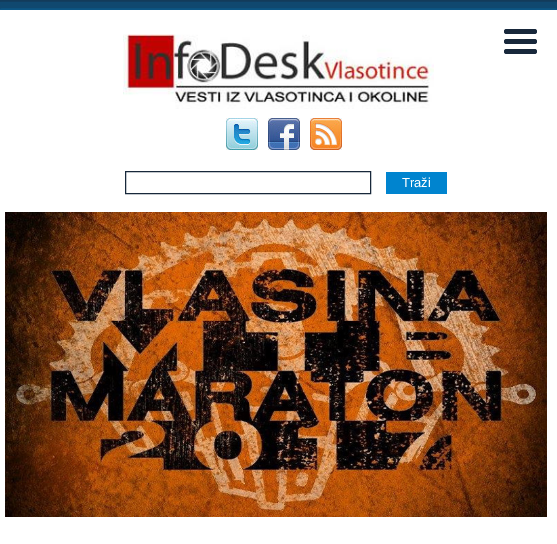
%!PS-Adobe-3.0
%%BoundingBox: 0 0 557 544
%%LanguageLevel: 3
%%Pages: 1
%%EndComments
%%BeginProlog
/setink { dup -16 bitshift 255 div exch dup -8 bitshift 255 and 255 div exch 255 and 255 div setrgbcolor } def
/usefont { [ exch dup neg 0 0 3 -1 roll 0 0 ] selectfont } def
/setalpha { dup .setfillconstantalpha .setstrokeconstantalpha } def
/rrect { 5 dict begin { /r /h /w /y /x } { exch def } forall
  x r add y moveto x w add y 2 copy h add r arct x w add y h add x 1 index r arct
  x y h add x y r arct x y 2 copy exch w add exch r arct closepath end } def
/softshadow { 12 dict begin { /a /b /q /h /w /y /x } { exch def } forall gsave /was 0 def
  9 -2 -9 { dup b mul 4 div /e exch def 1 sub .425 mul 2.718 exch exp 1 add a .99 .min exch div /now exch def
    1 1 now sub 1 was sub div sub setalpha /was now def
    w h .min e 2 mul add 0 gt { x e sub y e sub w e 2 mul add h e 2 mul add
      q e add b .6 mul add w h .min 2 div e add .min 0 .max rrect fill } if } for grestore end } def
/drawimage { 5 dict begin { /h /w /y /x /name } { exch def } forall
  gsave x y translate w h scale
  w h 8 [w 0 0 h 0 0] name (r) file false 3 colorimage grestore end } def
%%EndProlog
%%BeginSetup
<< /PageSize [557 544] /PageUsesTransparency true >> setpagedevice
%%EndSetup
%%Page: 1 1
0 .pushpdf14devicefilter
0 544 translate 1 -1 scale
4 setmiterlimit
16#18283B setink
0 0 557 544 rectfill
16#0084CF setink
-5 5 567 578 0 13 0.71 softshadow
16#FFFFFF setink
0 10 557 534 rectfill
16#18283B setink
504 39 33 5 2.5 rrect fill
504 29 33 5 2.5 rrect fill
504 49 33 5 2.5 rrect fill
(img1.raw) 123 34 311 75 drawimage
(img2.raw) 226 118 32 32 drawimage
(img3.raw) 268 118 32 32 drawimage
(img4.raw) 310 118 32 32 drawimage
125.5 171.5 245 22 rectstroke
16#0084CF setink
386 172 61 22 rectfill
/LiberationSans-Regular 13 usefont
16#FFFFFF setink
402 187 moveto (Traži) show
(img5.raw) 5 212 542 305 drawimage
.poppdf14devicefilter showpage
%%EOF
